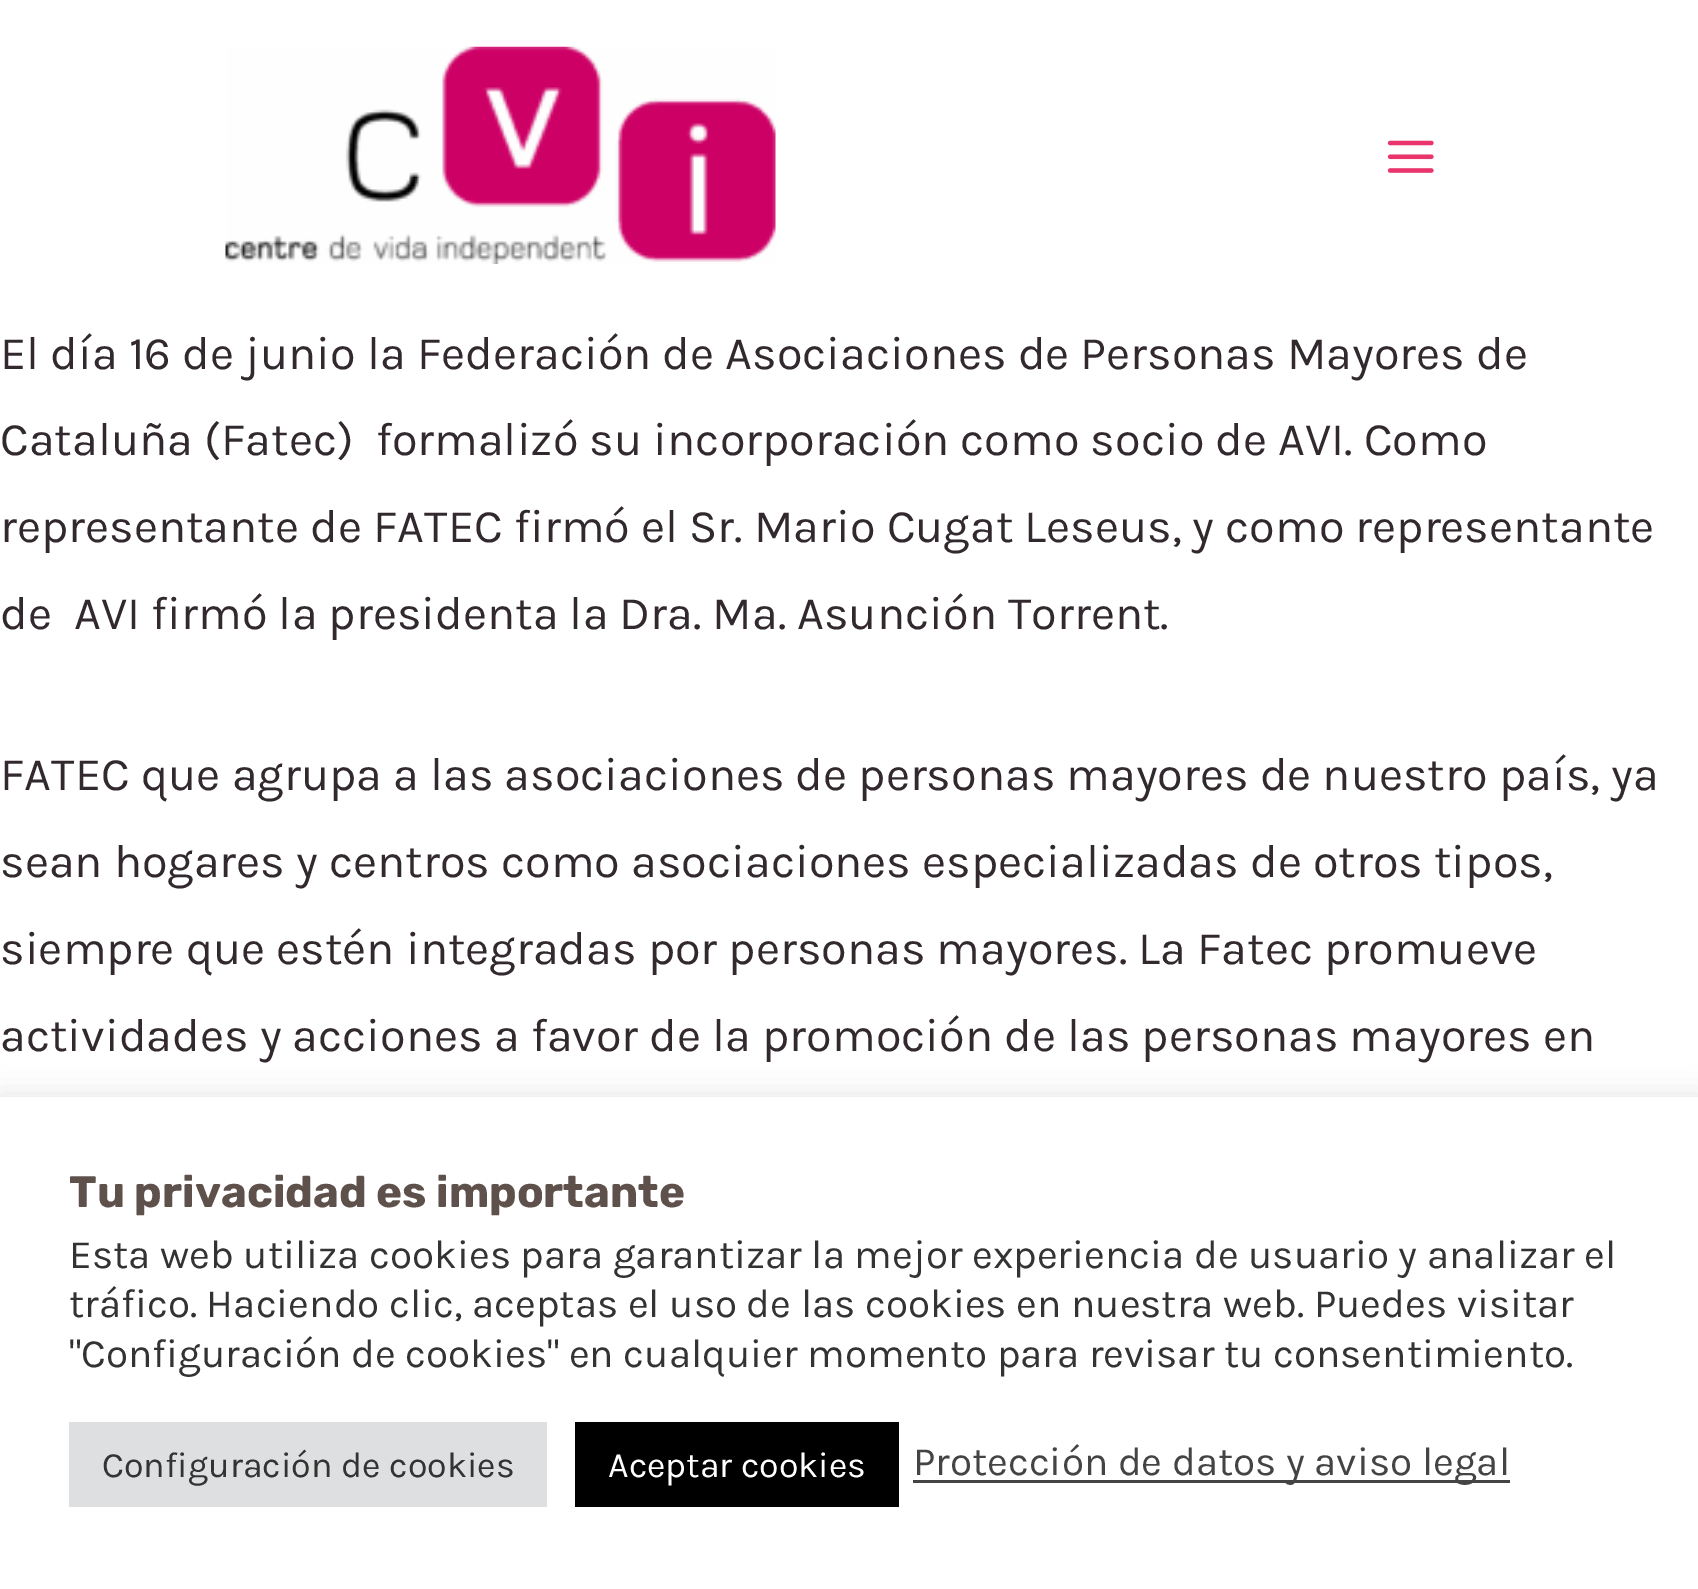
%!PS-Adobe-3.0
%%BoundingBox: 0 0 1698 1589
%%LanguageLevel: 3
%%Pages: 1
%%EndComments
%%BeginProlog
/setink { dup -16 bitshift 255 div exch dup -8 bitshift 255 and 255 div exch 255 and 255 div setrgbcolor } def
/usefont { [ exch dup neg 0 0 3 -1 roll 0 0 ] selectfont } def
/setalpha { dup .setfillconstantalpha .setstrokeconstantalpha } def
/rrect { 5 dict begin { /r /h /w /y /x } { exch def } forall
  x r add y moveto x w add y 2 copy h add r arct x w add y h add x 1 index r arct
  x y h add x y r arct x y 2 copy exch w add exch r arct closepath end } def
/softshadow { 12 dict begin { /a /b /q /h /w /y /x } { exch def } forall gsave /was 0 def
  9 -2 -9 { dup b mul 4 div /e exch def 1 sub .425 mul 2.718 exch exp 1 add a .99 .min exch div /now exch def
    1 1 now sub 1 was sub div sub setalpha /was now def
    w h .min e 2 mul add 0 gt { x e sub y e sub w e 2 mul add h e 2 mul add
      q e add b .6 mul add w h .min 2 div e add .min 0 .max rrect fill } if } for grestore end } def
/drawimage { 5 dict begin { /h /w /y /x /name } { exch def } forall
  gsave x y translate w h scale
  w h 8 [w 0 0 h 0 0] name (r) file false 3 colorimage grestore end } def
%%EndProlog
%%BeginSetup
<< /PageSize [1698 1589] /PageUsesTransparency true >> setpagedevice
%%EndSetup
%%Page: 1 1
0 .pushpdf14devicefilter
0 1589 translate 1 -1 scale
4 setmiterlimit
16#FFFFFF setink
0 0 1698 1589 rectfill
(img1.raw) 225 46 551 218 drawimage
(img2.raw) 1387 140 47 33 drawimage
/Karla-Regular 46.75 usefont
16#32292F setink
[
    [(El día 16 de junio la Federación de Asociaciones de Personas Mayores de) 0 369]
    [(Cataluña \(Fatec\)  formalizó su incorporación como socio de AVI. Como) 0 455]
    [(representante de FATEC firmó el Sr. Mario Cugat Leseus, y como representante) 0 542]
    [(de  AVI firmó la presidenta la Dra. Ma. Asunción Torrent.) 0 629]
    [(FATEC que agrupa a las asociaciones de personas mayores de nuestro país, ya) 0 790]
    [(sean hogares y centros como asociaciones especializadas de otros tipos,) 0 877]
    [(siempre que estén integradas por personas mayores. La Fatec promueve) 0 964]
    [(actividades y acciones a favor de la promoción de las personas mayores en) 0 1051]
] { aload pop moveto show } forall
16#ACABAB setink
0 1095 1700 492 0 14 0.3 softshadow
16#FFFFFF setink
0 1097 1698 492 rectfill
/Rubik-Bold 44 usefont
16#5E514C setink
69 1207 moveto (Tu privacidad es importante) show
/Karla-Regular 40.35 usefont
16#333333 setink
[
    [(Esta web utiliza cookies para garantizar la mejor experiencia de usuario y analizar el) 69 1268]
    [(tráfico. Haciendo clic, aceptas el uso de las cookies en nuestra web. Puedes visitar) 69 1317]
    [("Configuración de cookies" en cualquier momento para revisar tu consentimiento.) 69 1367]
] { aload pop moveto show } forall
16#DEDFE0 setink
69 1422 478 85 rectfill
/Karla-Regular 35.75 usefont
16#333333 setink
102 1477 moveto (Configuración de cookies) show
16#000000 setink
575 1422 324 85 rectfill
16#FFFFFF setink
608 1477 moveto (Aceptar cookies) show
16#444444 setink
913 1480 597 3 rectfill
/Karla-Regular 40.35 usefont
913 1475 moveto (Protección de datos y aviso legal) show
.poppdf14devicefilter showpage
%%EOF
